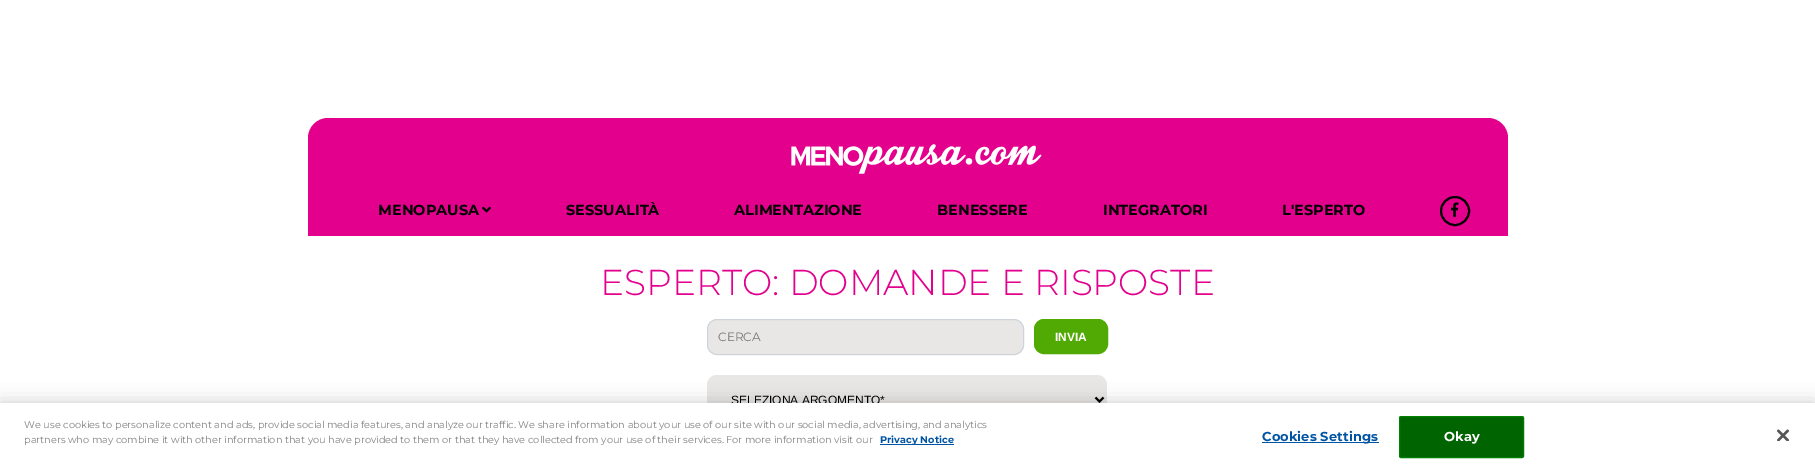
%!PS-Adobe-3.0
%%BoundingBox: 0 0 1815 470
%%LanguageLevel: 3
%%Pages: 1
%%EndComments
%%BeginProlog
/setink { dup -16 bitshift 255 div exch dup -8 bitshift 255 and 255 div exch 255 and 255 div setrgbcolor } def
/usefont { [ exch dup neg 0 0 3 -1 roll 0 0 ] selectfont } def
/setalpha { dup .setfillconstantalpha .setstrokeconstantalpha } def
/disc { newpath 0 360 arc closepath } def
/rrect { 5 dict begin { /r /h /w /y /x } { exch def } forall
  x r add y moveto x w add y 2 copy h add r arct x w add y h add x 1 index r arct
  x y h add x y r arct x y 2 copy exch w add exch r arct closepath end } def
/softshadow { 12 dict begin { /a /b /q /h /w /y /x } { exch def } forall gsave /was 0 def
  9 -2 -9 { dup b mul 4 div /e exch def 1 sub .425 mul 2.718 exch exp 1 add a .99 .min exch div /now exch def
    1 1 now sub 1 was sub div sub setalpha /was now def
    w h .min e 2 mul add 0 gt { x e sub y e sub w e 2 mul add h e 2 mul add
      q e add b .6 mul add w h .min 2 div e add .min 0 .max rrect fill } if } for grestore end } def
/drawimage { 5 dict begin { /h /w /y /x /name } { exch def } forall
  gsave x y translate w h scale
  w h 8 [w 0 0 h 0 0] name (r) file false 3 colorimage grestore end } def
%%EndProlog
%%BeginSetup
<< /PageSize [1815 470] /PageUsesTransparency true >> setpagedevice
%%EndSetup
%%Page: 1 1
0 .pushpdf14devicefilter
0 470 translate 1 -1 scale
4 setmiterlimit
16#FFFFFF setink
0 0 1815 470 rectfill
16#E2008D setink
328 118 moveto 1488 118 lineto 1499 118 1508 127 1508 138 curveto 1508 236 lineto 308 236 lineto 308 138 lineto 308 127 317 118 328 118 curveto closepath fill
(img1.raw) 791 144 251 30 drawimage
/Montserrat-Bold 14.5 usefont
16#000000 setink
378 215 moveto (MENOPAUSA) show
(img2.raw) 482 206 9 7 drawimage
[
    [(SESSUALITÀ) 566 215]
    [(ALIMENTAZIONE) 734 215]
    [(BENESSERE) 937 215]
    [(INTEGRATORI) 1103 215]
    [(L'ESPERTO) 1282 215]
] { aload pop moveto show } forall
2 setlinewidth
1455 211 14 disc stroke
(img3.raw) 1451 202 8 15 drawimage
/Montserrat-Light 36 usefont
16#E2008D setink
600 295 moveto (ESPERTO: DOMANDE E RISPOSTE) show
16#E8E7E6 setink
707.5 319.5 316 35 9.5 rrect gsave fill grestore
16#CED4DA setink
1 setlinewidth
stroke
/Montserrat-Regular 12 usefont
16#757575 setink
718 341 moveto (CERCA) show
16#51A903 setink
1034.5 319.5 73 34 9.5 rrect gsave fill grestore
stroke
/LiberationSans-Bold 12 usefont
16#FFFFFF setink
1055 341 moveto (INVIA) show
16#E8E7E6 setink
707 375 400 50 10 rrect fill
16#000000 setink
2 setlinewidth
1095.5 397.5 moveto 1099.5 401.5 lineto 1103.5 397.5 lineto stroke
/LiberationSans-Regular 12 usefont
731 404 moveto (SELEZIONA ARGOMENTO*) show
0 403 1815 67 0 9 0.2 softshadow
16#FFFFFF setink
0 403 1815 67 rectfill
/Montserrat-Regular 9.75 usefont
16#807F83 setink
24 428 moveto (We use cookies to personalize content and ads, provide social media features, and analyze our traffic. We share information about your use of our site with our social media, advertising, and analytics) show
24 443 moveto (partners who may combine it with other information that you have provided to them or that they have collected from your use of their services. For more information visit our) show
16#0054A4 setink
880 444 74 1 rectfill
/Montserrat-Bold 9.75 usefont
880 443 moveto (Privacy Notice) show
1262 442 117 1 rectfill
/Montserrat-Bold 13 usefont
1262 441 moveto 0.1 0 (Cookies Settings) ashow
16#006400 setink
1399.5 416.5 124 41 1.5 rrect gsave fill grestore
16#008000 setink
1 setlinewidth
stroke
16#FFFFFF setink
1444 441 moveto 0.1 0 (Okay) ashow
(img4.raw) 1777 429 12 12 drawimage
.poppdf14devicefilter showpage
%%EOF
